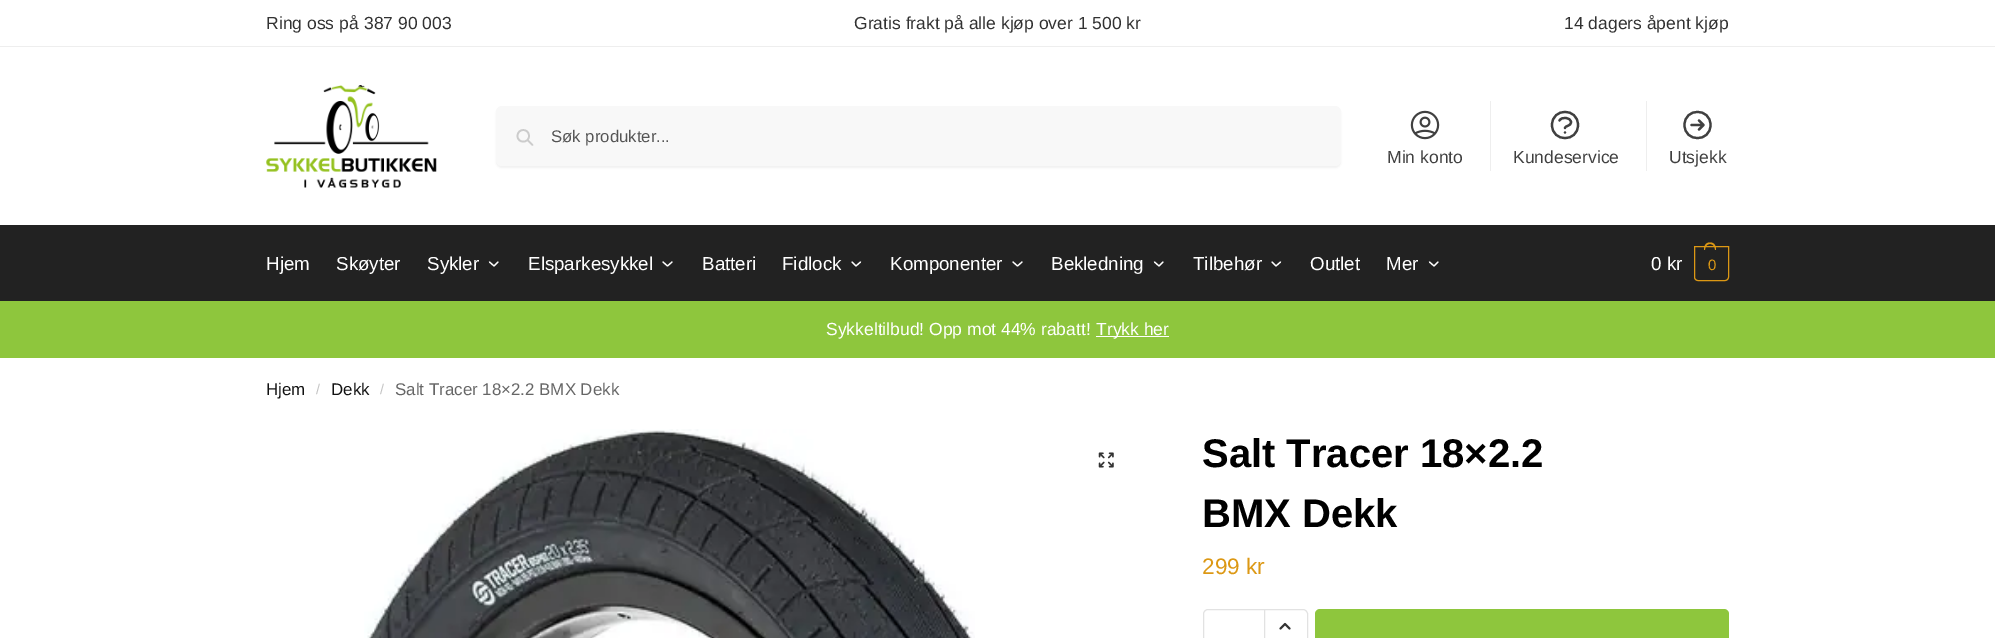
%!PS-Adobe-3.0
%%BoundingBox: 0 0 2013 638
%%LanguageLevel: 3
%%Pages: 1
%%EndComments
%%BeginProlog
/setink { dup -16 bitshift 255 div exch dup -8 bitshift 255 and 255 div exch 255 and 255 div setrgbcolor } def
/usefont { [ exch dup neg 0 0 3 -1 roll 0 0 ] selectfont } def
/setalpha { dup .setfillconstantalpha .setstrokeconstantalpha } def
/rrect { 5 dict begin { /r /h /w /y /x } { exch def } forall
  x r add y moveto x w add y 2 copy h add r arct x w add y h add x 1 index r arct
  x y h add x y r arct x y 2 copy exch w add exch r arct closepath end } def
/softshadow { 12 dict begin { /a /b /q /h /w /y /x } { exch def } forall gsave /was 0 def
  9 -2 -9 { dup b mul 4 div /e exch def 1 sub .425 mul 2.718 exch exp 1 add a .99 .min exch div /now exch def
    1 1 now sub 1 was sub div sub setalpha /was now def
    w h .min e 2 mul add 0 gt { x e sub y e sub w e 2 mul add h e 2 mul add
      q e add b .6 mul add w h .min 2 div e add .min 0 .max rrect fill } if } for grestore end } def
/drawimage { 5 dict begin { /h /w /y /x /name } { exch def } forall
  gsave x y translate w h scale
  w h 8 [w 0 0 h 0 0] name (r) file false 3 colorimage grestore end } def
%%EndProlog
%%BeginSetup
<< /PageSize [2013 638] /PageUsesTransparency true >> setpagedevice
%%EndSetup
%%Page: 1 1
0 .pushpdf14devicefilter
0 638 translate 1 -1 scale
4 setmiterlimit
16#FFFFFF setink
0 0 2013 638 rectfill
16#EEEEEE setink
0 46 1995 1 rectfill
/LiberationSans-Regular 17.5 usefont
16#323232 setink
[
    [(Ring oss på) 266 29]
    [(387 90 003) 364 29]
    [(Gratis frakt på alle kjøp over 1 500 kr) 854 29]
    [(14 dagers åpent kjøp) 1564 29]
] { aload pop moveto show } forall
(img1.raw) 266 85 171 103 drawimage
16#000000 setink
496 108 845 60 6 1 0.05 softshadow
16#F8F8F8 setink
496 106 845 60 6 rrect fill
16#CCCCCC setink
1.7 setlinewidth
1 setlinecap
1 setlinejoin
532.5 145 moveto 527.5 140 lineto 529 136 moveto 529 143.5 517.5 143.5 517.5 136 curveto 517.5 128 529 128 529 136 curveto closepath stroke
/LiberationSans-Regular 16.75 usefont
16#555555 setink
551 142 moveto (Søk produkter...) show
(img2.raw) 1410 110 30 30 drawimage
/LiberationSans-Regular 17.5 usefont
16#404040 setink
1387 163 moveto (Min konto) show
16#EEEEEE setink
1490 101 1 70 rectfill
16#404040 setink
2.2 setlinewidth
1559.5 120.5 moveto 1561.5 116.5 1570.5 117 1571 122 curveto 1571 126.5 1565 125.5 1565 128 curveto 1565 132.5 moveto 1565 132.5 lineto 1578 125 moveto 1578 142.5 1552 142.5 1552 125 curveto 1552 107.5 1578 107.5 1578 125 curveto closepath stroke
1513 163 moveto (Kundeservice) show
16#EEEEEE setink
1646 101 1 70 rectfill
16#404040 setink
1699 120.5 moveto 1703.5 125 lineto 1703.5 125 moveto 1699 129.5 lineto 1703.5 125 moveto 1691.5 125 lineto 1710.5 125 moveto 1710.5 142.5 1684.5 142.5 1684.5 125 curveto 1684.5 107.5 1710.5 107.5 1710.5 125 curveto closepath stroke
1669 163 moveto (Utsjekk) show
16#222222 setink
0 225 1995 76 rectfill
/LiberationSans-Regular 18.75 usefont
16#FFFFFF setink
[
    [(Hjem) 266 270]
    [(Skøyter) 336 270]
    [(Sykler) 427 270]
] { aload pop moveto show } forall
1.2 setlinewidth
498 262 moveto 494 266 lineto 489.5 262 lineto stroke
528 270 moveto (Elsparkesykkel) show
672 262 moveto 667.5 266 lineto 663 262 lineto stroke
702 270 moveto (Batteri) show
782 270 moveto (Fidlock) show
860.5 262 moveto 856 266 lineto 852 262 lineto stroke
890 270 moveto (Komponenter) show
1022 262 moveto 1017.5 266 lineto 1013 262 lineto stroke
1051 270 moveto (Bekledning) show
1163 262 moveto 1159 266 lineto 1154.5 262 lineto stroke
1193 270 moveto (Tilbehør) show
1280.5 262 moveto 1276 266 lineto 1272 262 lineto stroke
1310 270 moveto (Outlet) show
1386 270 moveto (Mer) show
1438 262 moveto 1434 266 lineto 1429.5 262 lineto stroke
1651 270 moveto (0 kr) show
16#DC9814 setink
1 setlinewidth
0 setlinecap
0 setlinejoin
1694.5 246.5 moveto 1728.5 246.5 lineto 1728.5 277 lineto 1728.5 279 1727 280.5 1725 280.5 curveto 1698 280.5 lineto 1696 280.5 1694.5 279 1694.5 277 curveto closepath stroke
1710 242.5 moveto 1714.5 242.5 1716 246 1716 250 curveto 1704 250 lineto 1704 246 1705.5 242.5 1710 242.5 curveto closepath 1710 244 moveto 1713.5 244 1715 247 1715 250 curveto 1705 250 lineto 1705 247 1706.5 244 1710 244 curveto closepath eofill
/LiberationSans-Regular 15 usefont
1708 270 moveto -1 0 (0) ashow
16#8EC63D setink
0 301 1995 57 rectfill
/LiberationSans-Regular 17.5 usefont
16#FFFFFF setink
826 335 moveto (Sykkeltilbud! Opp mot 44% rabatt!) show
1096 336 73 1 rectfill
1096 335 moveto (Trykk her) show
/LiberationSans-Regular 16.9 usefont
16#111111 setink
266 395 moveto (Hjem) show
/LiberationSans-Regular 14 usefont
16#C2C2C2 setink
316 394 moveto (/) show
/LiberationSans-Regular 16.9 usefont
16#111111 setink
331 395 moveto (Dekk) show
/LiberationSans-Regular 14 usefont
16#C2C2C2 setink
380 394 moveto (/) show
/LiberationSans-Regular 16.9 usefont
16#666666 setink
395 395 moveto (Salt Tracer 18×2.2 BMX Dekk) show
(img3.raw) 364 429 611 209 drawimage
(img4.raw) 1098 452 16 16 drawimage
/LiberationSans-Bold 40 usefont
16#000000 setink
1202 467 moveto (Salt Tracer 18×2.2) show
1202 527 moveto (BMX Dekk) show
/LiberationSans-Regular 22.5 usefont
16#DC9814 setink
1202 574 moveto (299 kr) show
16#E2E2E2 setink
1208 609.5 moveto 1264.5 609.5 lineto 1264.5 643.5 lineto 1208 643.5 lineto 1205.5 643.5 1203.5 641.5 1203.5 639 curveto 1203.5 614 lineto 1203.5 611.5 1205.5 609.5 1208 609.5 curveto closepath stroke
16#FFFFFF setink
1264.5 609.5 moveto 1303 609.5 lineto 1305.5 609.5 1307.5 611.5 1307.5 614 curveto 1307.5 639 lineto 1307.5 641.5 1305.5 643.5 1303 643.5 curveto 1264.5 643.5 lineto closepath gsave fill grestore
16#E2E2E2 setink
stroke
(img5.raw) 1279 622 12 8 drawimage
16#8EC63D setink
1315 609 414 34 5 rrect fill
.poppdf14devicefilter showpage
%%EOF
